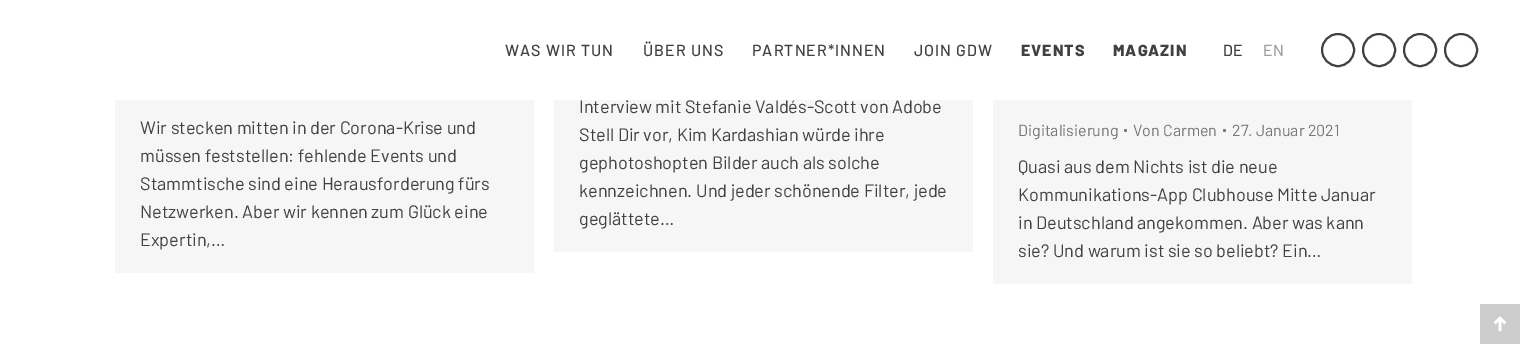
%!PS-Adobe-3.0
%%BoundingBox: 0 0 1530 354
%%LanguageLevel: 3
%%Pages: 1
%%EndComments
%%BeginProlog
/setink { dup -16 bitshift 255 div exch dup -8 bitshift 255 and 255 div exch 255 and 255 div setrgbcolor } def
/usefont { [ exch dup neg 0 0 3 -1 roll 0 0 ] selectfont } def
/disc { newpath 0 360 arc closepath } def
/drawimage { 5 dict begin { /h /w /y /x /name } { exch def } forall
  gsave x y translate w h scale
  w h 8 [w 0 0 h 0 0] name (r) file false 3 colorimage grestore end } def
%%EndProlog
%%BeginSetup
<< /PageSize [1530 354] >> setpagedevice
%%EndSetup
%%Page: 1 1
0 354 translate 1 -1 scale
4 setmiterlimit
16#FFFFFF setink
0 0 1530 354 rectfill
/Barlow-Medium 16 usefont
16#414141 setink
505 56 moveto 1 0 (WAS WIR TUN) ashow
643 56 moveto 1 0 (ÜBER UNS) ashow
752 56 moveto 1 0 (PARTNER*INNEN) ashow
914 56 moveto 1 0 (JOIN GDW) ashow
/Barlow-ExtraBold 16 usefont
1021 56 moveto 1 0 (EVENTS) ashow
1113 56 moveto 1 0 (MAGAZIN) ashow
/Barlow-Medium 16 usefont
1223 56 moveto (DE) show
16#A0A0A0 setink
1263 56 moveto (EN) show
16#414141 setink
2 setlinewidth
1338 50 16 disc stroke
1379 50 16 disc stroke
1420 50 16 disc stroke
1461 50 16 disc stroke
16#F6F6F6 setink
115 100 419 173 rectfill
/Barlow-Regular 18 usefont
16#414141 setink
[
    [(Wir stecken mitten in der Corona-Krise und) 140 134]
    [(müssen feststellen: fehlende Events und) 140 162]
    [(Stammtische sind eine Herausforderung fürs) 140 190]
    [(Netzwerken. Aber wir kennen zum Glück eine) 140 218]
    [(Expertin,…) 140 246]
] { aload pop moveto show } forall
16#F6F6F6 setink
554 100 419 152 rectfill
16#414141 setink
[
    [(Interview mit Stefanie Valdés-Scott von Adobe) 579 113]
    [(Stell Dir vor, Kim Kardashian würde ihre) 579 141]
    [(gephotoshopten Bilder auch als solche) 579 169]
    [(kennzeichnen. Und jeder schönende Filter, jede) 579 197]
    [(geglättete…) 579 225]
] { aload pop moveto show } forall
16#F6F6F6 setink
993 100 419 184 rectfill
/Barlow-Regular 16 usefont
16#777777 setink
1018 136 moveto (Digitalisierung) show
1125.5 130.5 1.5 disc fill
1133 136 moveto (Von Carmen) show
1224.5 130.5 1.5 disc fill
1232 136 moveto (27. Januar 2021) show
/Barlow-Regular 18 usefont
16#414141 setink
[
    [(Quasi aus dem Nichts ist die neue) 1018 173]
    [(Kommunikations-App Clubhouse Mitte Januar) 1018 201]
    [(in Deutschland angekommen. Aber was kann) 1018 229]
    [(sie? Und warum ist sie so beliebt? Ein…) 1018 257]
] { aload pop moveto show } forall
16#CCCCCC setink
1480 304 40 40 rectfill
(img1.raw) 1494 316 12 16 drawimage
showpage
%%EOF
